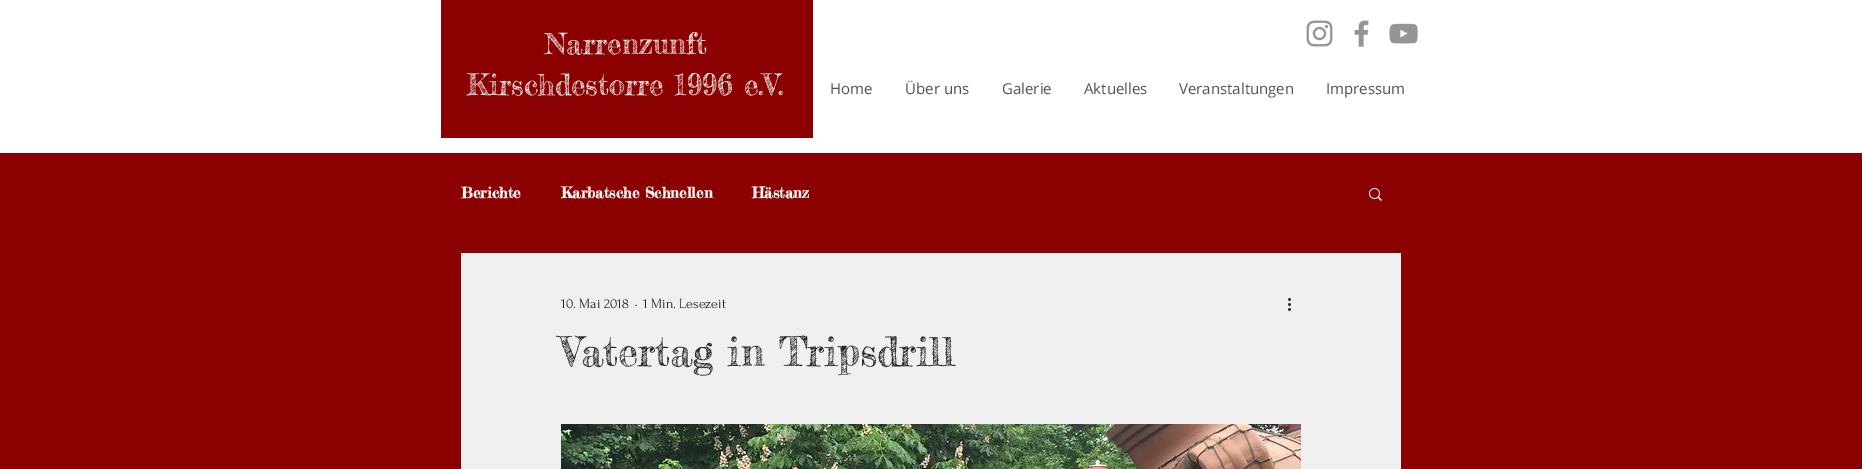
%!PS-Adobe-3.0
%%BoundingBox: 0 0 1862 469
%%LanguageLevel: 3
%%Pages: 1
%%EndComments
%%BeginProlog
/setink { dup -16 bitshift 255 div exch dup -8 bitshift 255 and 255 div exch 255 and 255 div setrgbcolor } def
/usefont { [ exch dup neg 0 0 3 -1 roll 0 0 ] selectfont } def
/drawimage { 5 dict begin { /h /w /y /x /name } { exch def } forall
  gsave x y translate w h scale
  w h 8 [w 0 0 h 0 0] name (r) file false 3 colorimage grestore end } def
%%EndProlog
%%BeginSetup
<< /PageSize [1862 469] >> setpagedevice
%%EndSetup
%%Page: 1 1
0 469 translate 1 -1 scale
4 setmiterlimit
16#8B0000 setink
0 0 1862 469 rectfill
16#FFFFFF setink
0 0 1862 153 rectfill
16#8B0000 setink
441 0 372 138 rectfill
(img1.raw) 1306 20 27 27 drawimage
(img2.raw) 1354 20 15 27 drawimage
(img3.raw) 1389 23 29 21 drawimage
/FrederickatheGreat-Regular 29 usefont
16#FAFAFA setink
545 54 moveto (Narrenzunft) show
467 95 moveto (Kirschdestorre 1996 e.V.) show
/OpenSans-Regular 15 usefont
16#555353 setink
[
    [(Home) 830 94]
    [(Über uns) 905 94]
    [(Galerie) 1002 94]
    [(Aktuelles) 1084 94]
    [(Veranstaltungen) 1179 94]
    [(Impressum) 1326 94]
] { aload pop moveto show } forall
/FrederickatheGreat-Bold 15 usefont
16#FAFAFA setink
[
    [(Berichte) 461 198]
    [(Karbatsche Schnellen) 561 198]
    [(Hästanz) 752 198]
] { aload pop moveto show } forall
(img4.raw) 1369 188 13 13 drawimage
16#F0F0F0 setink
461 253 940 216 rectfill
/Forum-Regular 14 usefont
16#222222 setink
[
    [(10. Mai 2018) 561 308]
    [(·) 635 308]
    [(1 Min. Lesezeit) 643 308]
] { aload pop moveto show } forall
(img5.raw) 1288 298 3 13 drawimage
/FrederickatheGreat-Regular 40 usefont
561 366 moveto (Vatertag in Tripsdrill) show
(img6.raw) 561 424 740 45 drawimage
showpage
%%EOF
